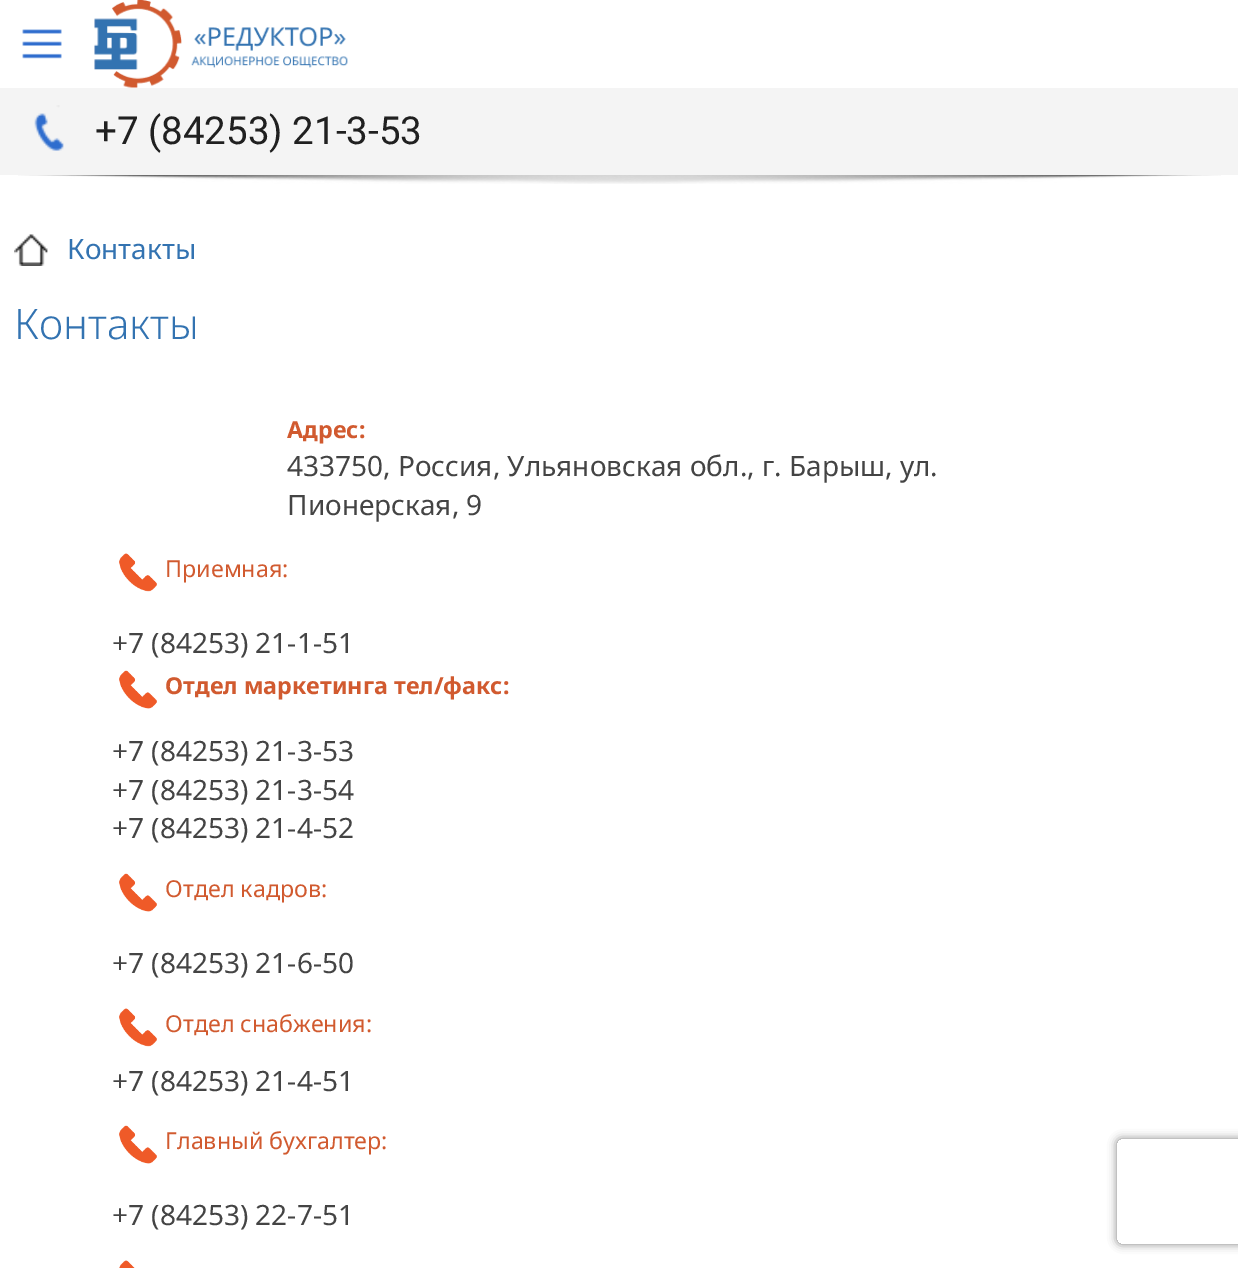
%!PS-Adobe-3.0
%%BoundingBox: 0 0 1238 1268
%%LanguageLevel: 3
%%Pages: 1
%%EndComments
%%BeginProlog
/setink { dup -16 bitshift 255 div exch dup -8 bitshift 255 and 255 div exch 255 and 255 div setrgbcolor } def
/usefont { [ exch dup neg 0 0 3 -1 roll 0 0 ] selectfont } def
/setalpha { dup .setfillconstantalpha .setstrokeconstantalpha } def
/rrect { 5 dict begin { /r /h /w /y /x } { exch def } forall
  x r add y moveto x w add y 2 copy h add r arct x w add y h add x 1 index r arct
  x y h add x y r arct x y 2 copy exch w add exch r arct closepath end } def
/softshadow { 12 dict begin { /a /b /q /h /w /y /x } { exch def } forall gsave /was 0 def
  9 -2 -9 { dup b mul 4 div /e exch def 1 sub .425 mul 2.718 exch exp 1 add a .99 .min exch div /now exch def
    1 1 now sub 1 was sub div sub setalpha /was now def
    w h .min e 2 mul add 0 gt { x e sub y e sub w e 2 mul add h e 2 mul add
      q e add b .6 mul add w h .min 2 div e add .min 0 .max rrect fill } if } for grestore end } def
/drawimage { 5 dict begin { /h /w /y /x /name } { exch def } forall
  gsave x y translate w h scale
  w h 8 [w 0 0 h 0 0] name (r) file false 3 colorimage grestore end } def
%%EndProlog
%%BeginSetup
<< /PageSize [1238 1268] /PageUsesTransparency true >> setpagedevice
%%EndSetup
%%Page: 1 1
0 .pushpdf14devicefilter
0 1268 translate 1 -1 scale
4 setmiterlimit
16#FFFFFF setink
0 0 1238 1268 rectfill
(img1.raw) 22 29 40 30 drawimage
(img2.raw) 94 0 254 88 drawimage
16#F4F4F4 setink
0 88 1238 87 rectfill
(img3.raw) 34 105 30 46 drawimage
/Roboto-Regular 38.5 usefont
16#202020 setink
95 144 moveto (+7 \(84253\) 21-3-53) show
(img4.raw) 18 175 1203 9 drawimage
(img5.raw) 14 234 34 32 drawimage
/NotoSans-Regular 28 usefont
16#3373B1 setink
67 259 moveto (Контакты) show
/NotoSans-Light 42 usefont
14 339 moveto (Контакты) show
/NotoSans-Bold 23.3 usefont
16#D15A2F setink
287 438 moveto (Адрес:) show
/NotoSans-Regular 28 usefont
16#444444 setink
287 476 moveto (433750, Россия, Ульяновская обл., г. Барыш, ул.) show
287 515 moveto (Пионерская, 9) show
(img6.raw) 119 553 38 39 drawimage
/NotoSans-Regular 23.3 usefont
16#D15A2F setink
165 577 moveto (Приемная:) show
/NotoSans-Regular 28 usefont
16#444444 setink
112 653 moveto (+7 \(84253\) 21-1-51) show
(img7.raw) 119 670 38 39 drawimage
/NotoSans-Bold 23.3 usefont
16#D15A2F setink
165 694 moveto (Отдел маркетинга тел/факс:) show
/NotoSans-Regular 28 usefont
16#444444 setink
[
    [(+7 \(84253\) 21-3-53) 112 761]
    [(+7 \(84253\) 21-3-54) 112 800]
    [(+7 \(84253\) 21-4-52) 112 838]
] { aload pop moveto show } forall
(img7.raw) 119 873 38 39 drawimage
/NotoSans-Regular 23.3 usefont
16#D15A2F setink
165 897 moveto (Отдел кадров:) show
/NotoSans-Regular 28 usefont
16#444444 setink
112 973 moveto (+7 \(84253\) 21-6-50) show
(img8.raw) 119 1008 38 39 drawimage
/NotoSans-Regular 23.3 usefont
16#D15A2F setink
165 1032 moveto (Отдел снабжения:) show
/NotoSans-Regular 28 usefont
16#444444 setink
112 1091 moveto (+7 \(84253\) 21-4-51) show
(img7.raw) 119 1125 38 39 drawimage
/NotoSans-Regular 23.3 usefont
16#D15A2F setink
165 1149 moveto (Главный бухгалтер:) show
/NotoSans-Regular 28 usefont
16#444444 setink
112 1225 moveto (+7 \(84253\) 22-7-51) show
(img9.raw) 119 1260 16 8 drawimage
gsave
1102 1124 moveto 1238 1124 lineto 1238 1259 lineto 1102 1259 lineto closepath 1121 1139 moveto 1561 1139 lineto 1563 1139 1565 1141 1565 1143 curveto 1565 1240 lineto 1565 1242 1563 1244 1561 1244 curveto 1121 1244 lineto 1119 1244 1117 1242 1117 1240 curveto 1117 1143 lineto 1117 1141 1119 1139 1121 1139 curveto closepath eoclip newpath
16#808080 setink
1117 1139 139 105 4 4.5 1 softshadow
grestore
.poppdf14devicefilter showpage
%%EOF
